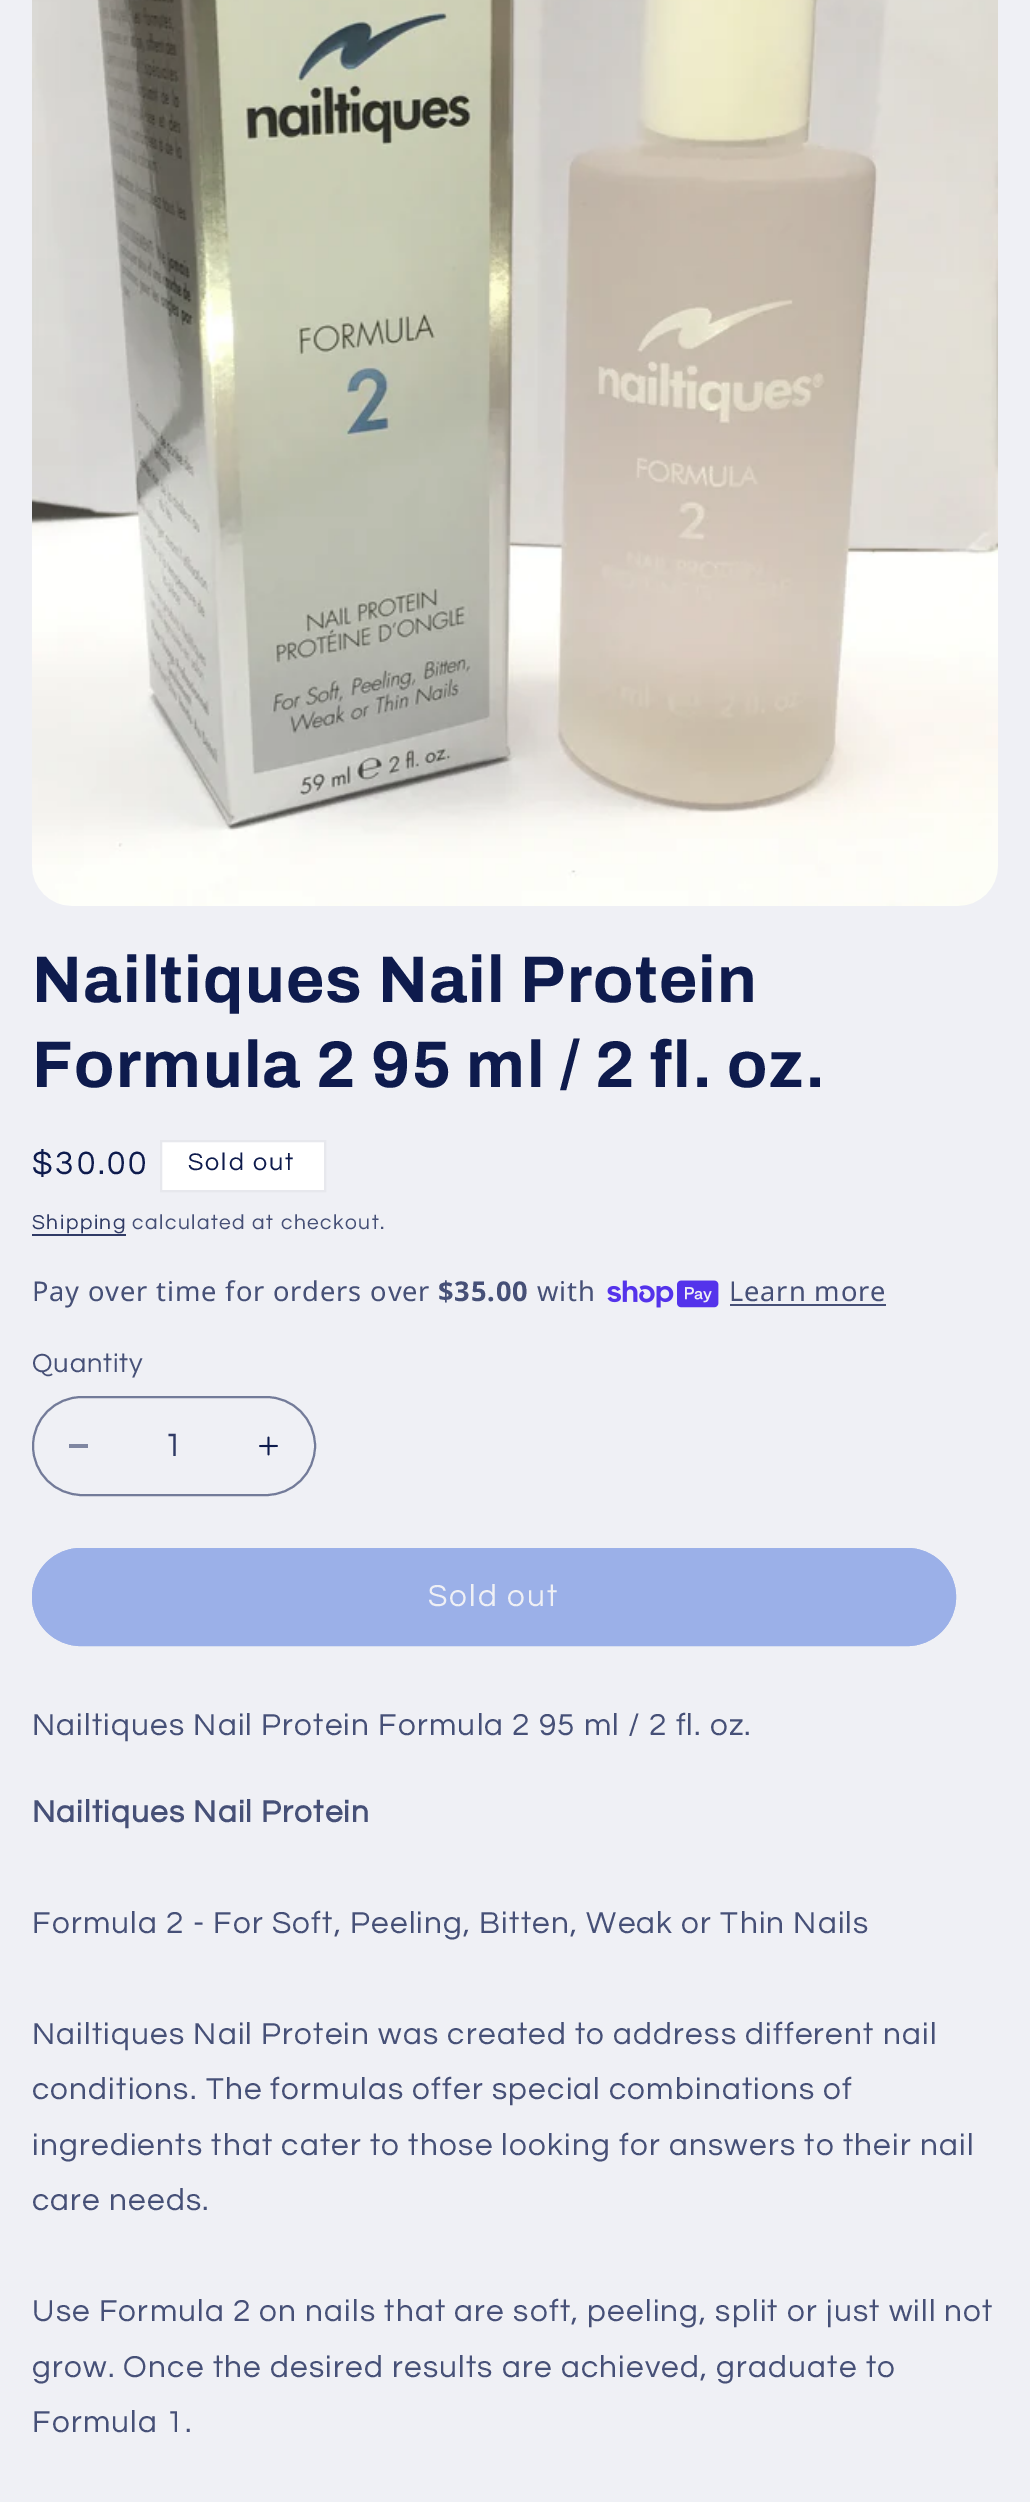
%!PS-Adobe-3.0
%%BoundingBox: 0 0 1030 2502
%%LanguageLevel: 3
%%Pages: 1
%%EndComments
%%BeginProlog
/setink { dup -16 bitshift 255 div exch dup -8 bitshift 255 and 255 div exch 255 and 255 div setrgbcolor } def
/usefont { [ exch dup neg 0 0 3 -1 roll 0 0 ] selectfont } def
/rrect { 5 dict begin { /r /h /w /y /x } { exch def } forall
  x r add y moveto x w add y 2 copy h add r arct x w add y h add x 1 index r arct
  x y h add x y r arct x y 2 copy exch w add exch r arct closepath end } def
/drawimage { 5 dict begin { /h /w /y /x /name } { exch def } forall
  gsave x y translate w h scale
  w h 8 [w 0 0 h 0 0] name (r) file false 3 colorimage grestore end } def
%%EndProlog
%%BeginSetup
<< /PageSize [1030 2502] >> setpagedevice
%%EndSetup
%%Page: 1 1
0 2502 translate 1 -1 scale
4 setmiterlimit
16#EFF0F5 setink
0 0 1030 2502 rectfill
(img1.raw) 32 0 966 906 drawimage
/Archivo-Bold 66 usefont
16#0E1B4D setink
32 1002 moveto 1.3 0 (Nailtiques Nail Protein) ashow
32 1087 moveto 1.3 0 (Formula 2 95 ml / 2 fl. oz.) ashow
/Questrial-Regular 33.5 usefont
32 1174 moveto 2.75 0 ($30.00) ashow
16#FFFFFF setink
161 1141 moveto 325 1141 lineto 325 1191 lineto 161 1191 lineto closepath gsave fill grestore
16#E7E8ED setink
2 setlinewidth
stroke
/Questrial-Regular 25 usefont
16#0E1B4D setink
188 1170 moveto 2 0 (Sold out) ashow
/Questrial-Regular 21 usefont
16#303B66 setink
32 1229 moveto 1.5 0 (Shipping) ashow
32 1234 94 2 rectfill
16#465077 setink
132 1229 moveto 1.5 0 (calculated at checkout.) ashow
/NotoSans-Regular 27.25 usefont
32 1301 moveto 0.85 0 (Pay over time for orders over) ashow
/NotoSans-Bold 27.25 usefont
438 1301 moveto 0.85 0 ($35.00) ashow
/NotoSans-Regular 27.25 usefont
537 1301 moveto 0.85 0 (with) ashow
(img2.raw) 607 1280 112 28 drawimage
729 1301 moveto 0.85 0 (Learn more) ashow
730 1304 156 2 rectfill
/Questrial-Regular 27.25 usefont
32 1372 moveto 0.85 0 (Quantity) ashow
16#7F86A1 setink
69 1444 19 4 rectfill
(img3.raw) 259 1436 19 20 drawimage
16#737B99 setink
33 1397 282 98 49 rrect stroke
/Questrial-Regular 33.5 usefont
16#303B66 setink
164 1456 moveto (1) show
16#9BB0E8 setink
32 1548 924 98 49 rrect fill
33 1549 922 96 48 rrect stroke
/Questrial-Regular 31.5 usefont
16#EFF0F5 setink
428 1606 moveto 2 0 (Sold out) ashow
16#465077 setink
32 1735 moveto 1.25 0 (Nailtiques Nail Protein Formula 2 95 ml / 2 fl. oz.) ashow
/Questrial-Bold 31.5 usefont
32 1822 moveto 1.25 0 (Nailtiques Nail Protein) ashow
/Questrial-Regular 31.5 usefont
32 1933 moveto 1.25 0 (Formula 2 - For Soft, Peeling, Bitten, Weak or Thin Nails) ashow
32 2044 moveto 1.25 0 (Nailtiques Nail Protein was created to address different nail) ashow
32 2099 moveto 1.25 0 (conditions. The formulas offer special combinations of) ashow
32 2155 moveto 1.25 0 (ingredients that cater to those looking for answers to their nail) ashow
32 2210 moveto 1.25 0 (care needs.) ashow
32 2321 moveto 1.25 0 (Use Formula 2 on nails that are soft, peeling, split or just will not) ashow
32 2377 moveto 1.25 0 (grow. Once the desired results are achieved, graduate to) ashow
32 2432 moveto 1.25 0 (Formula 1.) ashow
showpage
%%EOF
